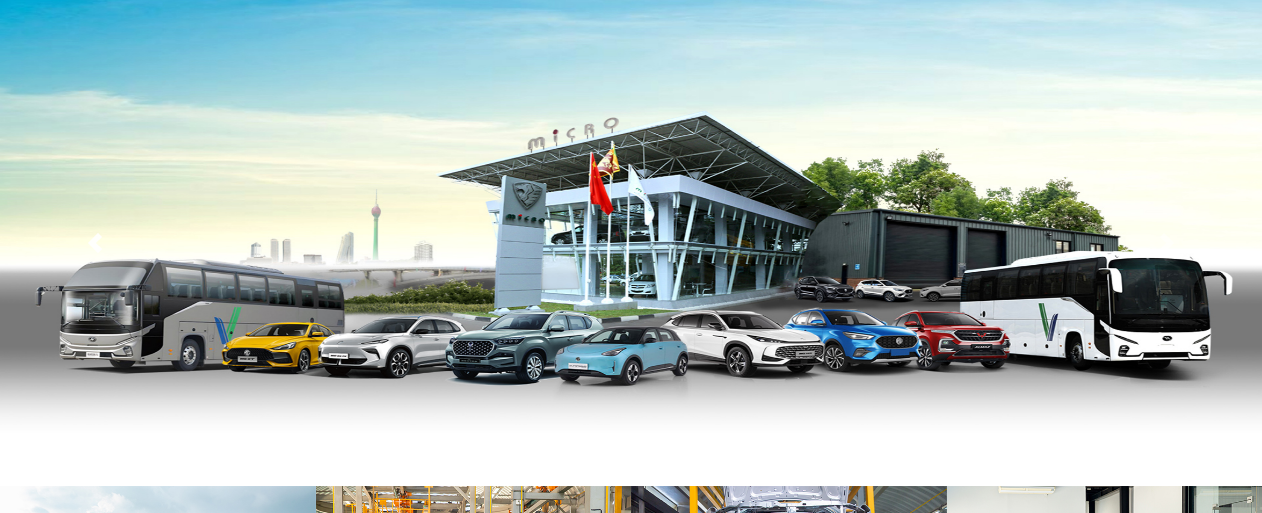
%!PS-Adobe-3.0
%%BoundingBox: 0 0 1262 513
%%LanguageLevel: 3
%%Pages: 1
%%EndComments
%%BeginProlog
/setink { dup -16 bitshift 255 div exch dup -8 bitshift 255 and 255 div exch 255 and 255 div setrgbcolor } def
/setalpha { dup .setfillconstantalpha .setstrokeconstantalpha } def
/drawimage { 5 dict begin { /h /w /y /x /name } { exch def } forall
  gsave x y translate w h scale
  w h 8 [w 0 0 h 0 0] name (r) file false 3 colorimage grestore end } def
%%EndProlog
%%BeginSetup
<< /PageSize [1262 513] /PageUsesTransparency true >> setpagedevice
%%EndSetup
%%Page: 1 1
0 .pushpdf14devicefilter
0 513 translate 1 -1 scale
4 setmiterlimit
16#FFFFFF setink
0 0 1262 513 rectfill
(img1.raw) 0 0 1262 486 drawimage
0.9 setalpha
98 233 moveto 88 243 lineto 98 253 lineto 102 249 lineto 95.5 243 lineto 102 237 lineto closepath fill
0.5 setalpha
1164 233 moveto 1160 237 lineto 1166.5 243 lineto 1160 249 lineto 1164 253 lineto 1174 243 lineto closepath fill
1 setalpha
(img2.raw) 0 486 316 27 drawimage
(img3.raw) 316 486 315 27 drawimage
(img4.raw) 631 486 316 27 drawimage
(img5.raw) 947 486 315 27 drawimage
.poppdf14devicefilter showpage
%%EOF
